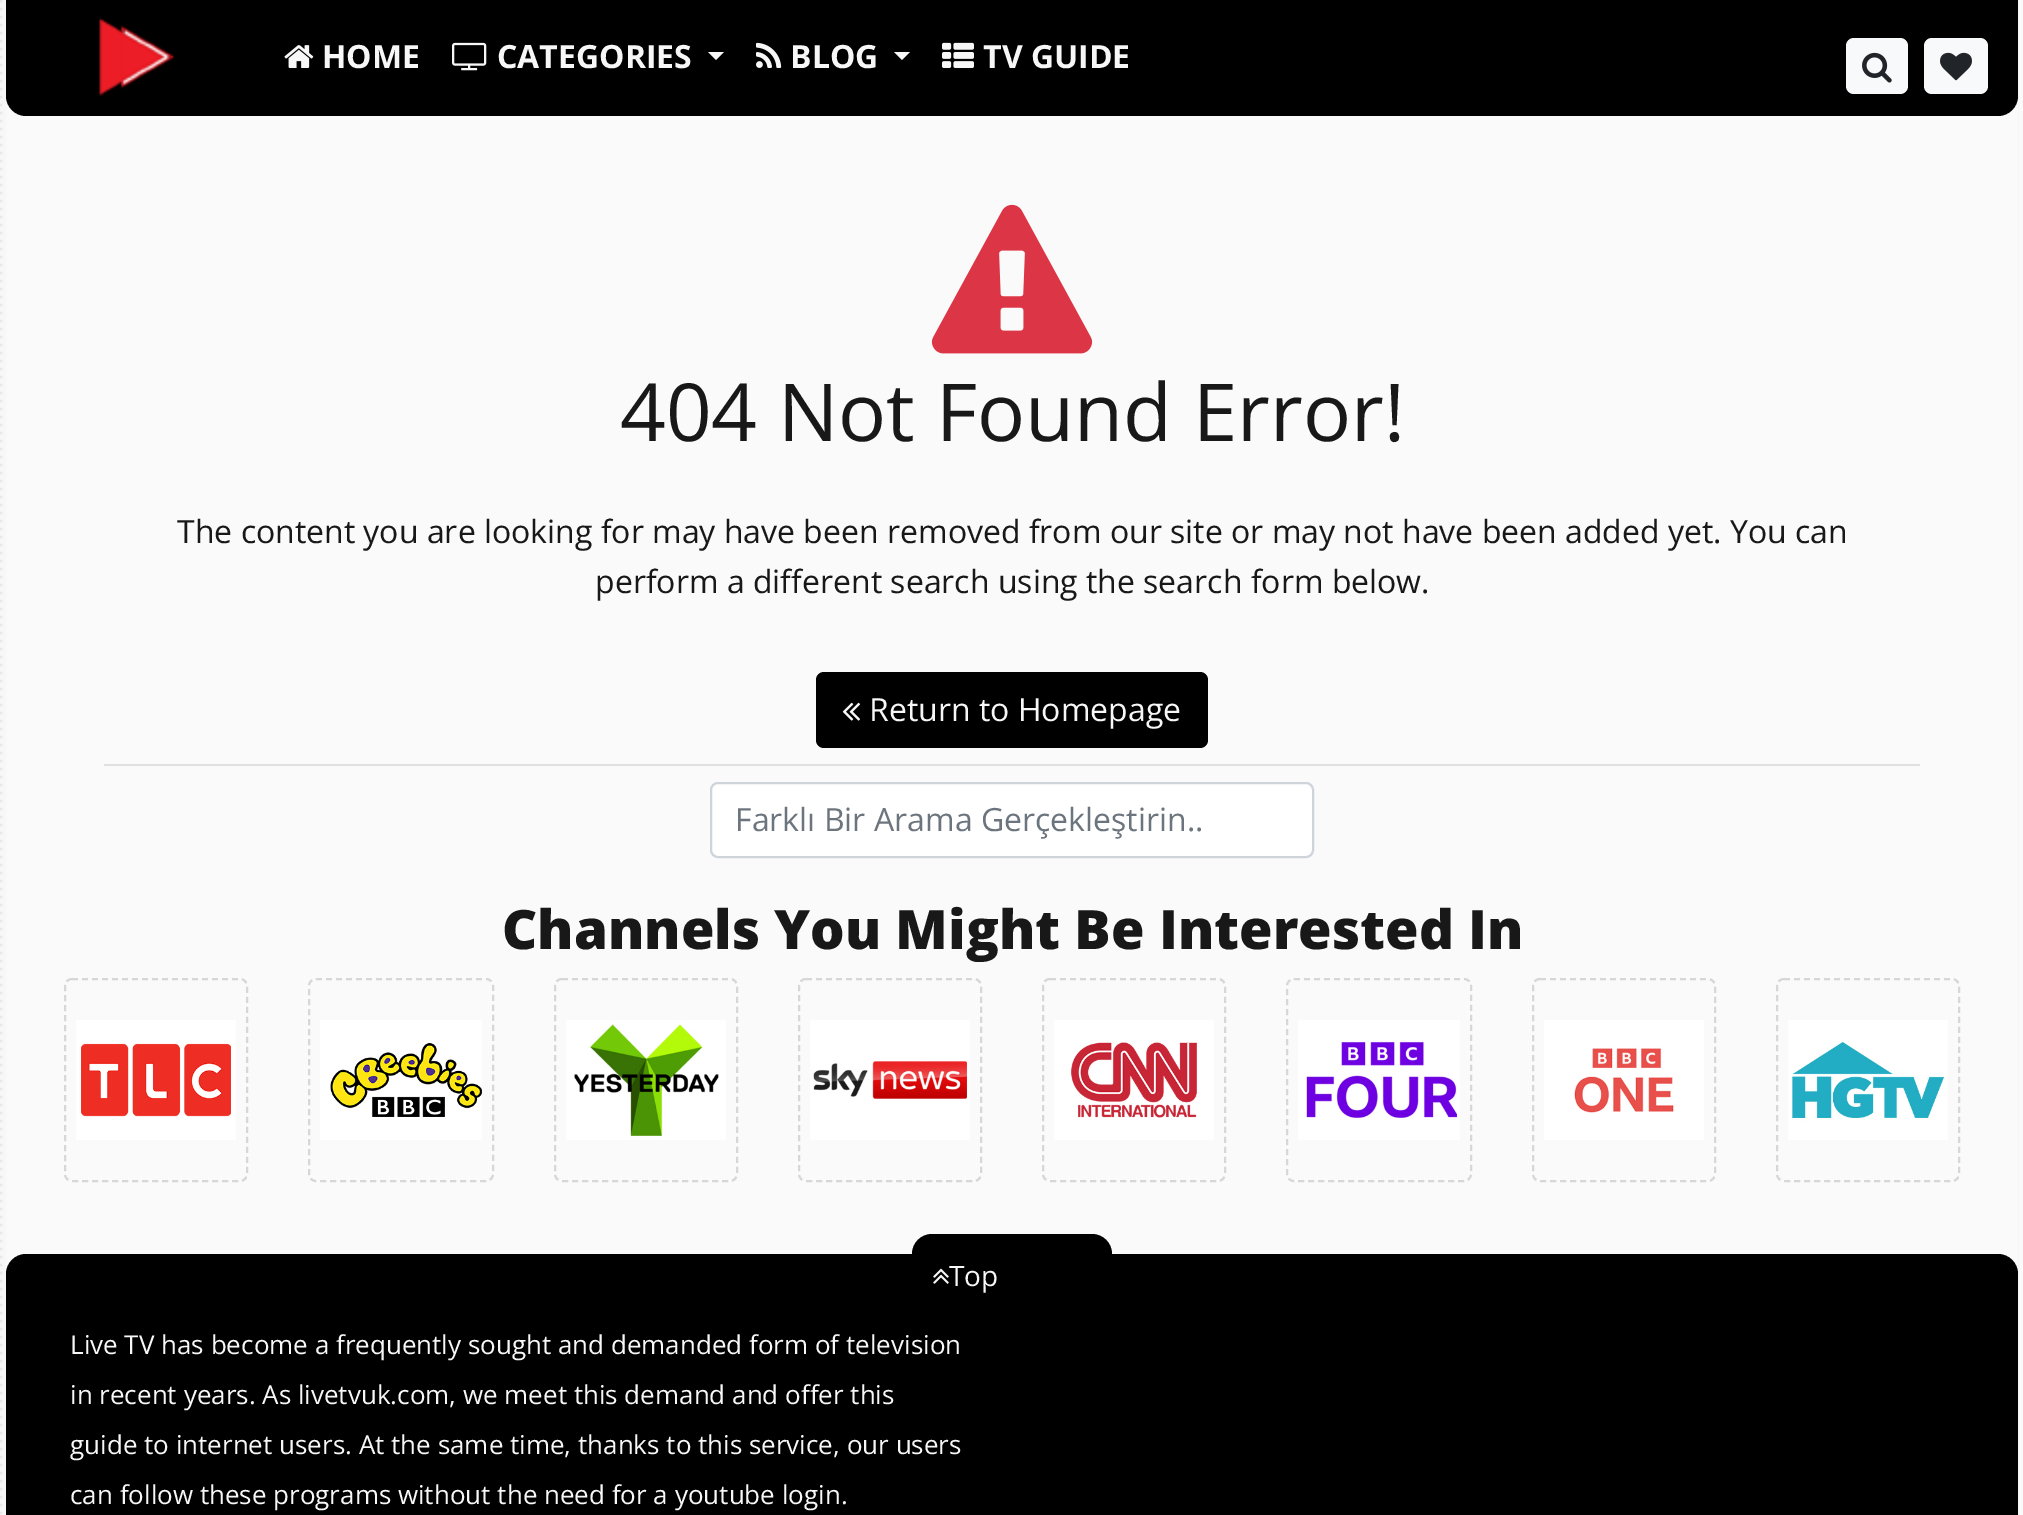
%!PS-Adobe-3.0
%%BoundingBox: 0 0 2023 1515
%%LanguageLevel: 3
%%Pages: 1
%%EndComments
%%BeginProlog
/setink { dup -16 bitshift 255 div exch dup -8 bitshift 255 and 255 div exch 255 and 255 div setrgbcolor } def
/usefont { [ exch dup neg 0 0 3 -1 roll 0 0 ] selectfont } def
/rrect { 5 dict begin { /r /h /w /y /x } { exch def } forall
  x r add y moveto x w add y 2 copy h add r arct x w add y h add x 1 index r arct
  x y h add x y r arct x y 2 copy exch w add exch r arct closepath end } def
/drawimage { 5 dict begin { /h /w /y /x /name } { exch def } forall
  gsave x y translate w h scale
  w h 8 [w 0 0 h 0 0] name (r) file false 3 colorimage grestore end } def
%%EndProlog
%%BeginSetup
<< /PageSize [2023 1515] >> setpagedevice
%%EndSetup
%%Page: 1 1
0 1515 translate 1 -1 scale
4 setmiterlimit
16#FAFAFA setink
0 0 2023 1515 rectfill
(img1.raw) 0 0 2019 1515 drawimage
6 96 2012 1178 rectfill
16#000000 setink
6 0 moveto 2018 0 lineto 2018 96 lineto 2018 107 2009 116 1998 116 curveto 26 116 lineto 15 116 6 107 6 96 curveto closepath fill
(img2.raw) 99 17 76 79 drawimage
(img3.raw) 284 45 30 23 drawimage
/OpenSans-Bold 32 usefont
16#F7F7F7 setink
322 68 moveto (HOME) show
(img4.raw) 452 42 35 29 drawimage
497 68 moveto (CATEGORIES) show
708 52 moveto 724 52 lineto 716 60 lineto closepath fill
(img5.raw) 756 42 26 26 drawimage
790 68 moveto (BLOG) show
894 52 moveto 910 52 lineto 902 60 lineto closepath fill
(img6.raw) 942 42 32 26 drawimage
983 68 moveto (TV GUIDE) show
16#F8F9FA setink
1846 38 62 56 8 rrect fill
(img7.raw) 1862 52 30 31 drawimage
1924 38 64 56 8 rrect fill
(img8.raw) 1940 52 32 29 drawimage
(img9.raw) 931 204 162 150 drawimage
/OpenSans-Regular 80 usefont
16#181818 setink
620 441 moveto (404 Not Found Error!) show
/OpenSans-Regular 32 usefont
177 543 moveto (The content you are looking for may have been removed from our site or may not have been added yet. You can) show
595 593 moveto (perform a different search using the search form below.) show
16#000000 setink
816 672 392 76 8 rrect fill
(img10.raw) 842 702 18 19 drawimage
16#F7F7F7 setink
869 721 moveto (Return to Homepage) show
16#E1E1E1 setink
104 764 1816 2 rectfill
16#FFFFFF setink
711 783 602 74 7 rrect gsave fill grestore
16#CED4DA setink
2 setlinewidth
stroke
16#6C757D setink
735 831 moveto (Farklı Bir Arama Gerçekleştirin..) show
/OpenSans-ExtraBold 54.4 usefont
16#181818 setink
502 949 moveto (Channels You Might Be Interested In) show
16#D7D7D7 setink
[6 4] 0 setdash
72 979 moveto 240 979 lineto 244 979 247 982 247 986 curveto 247 1174 lineto 247 1178 244 1181 240 1181 curveto 72 1181 lineto 68 1181 65 1178 65 1174 curveto 65 986 lineto 65 982 68 979 72 979 curveto closepath stroke
(img11.raw) 76 1020 160 120 drawimage
316 979 moveto 486 979 lineto 490 979 493 982 493 986 curveto 493 1174 lineto 493 1178 490 1181 486 1181 curveto 316 1181 lineto 312 1181 309 1178 309 1174 curveto 309 986 lineto 309 982 312 979 316 979 curveto closepath stroke
(img12.raw) 320 1020 162 120 drawimage
562 979 moveto 730 979 lineto 734 979 737 982 737 986 curveto 737 1174 lineto 737 1178 734 1181 730 1181 curveto 562 1181 lineto 558 1181 555 1178 555 1174 curveto 555 986 lineto 555 982 558 979 562 979 curveto closepath stroke
(img13.raw) 566 1020 160 120 drawimage
806 979 moveto 974 979 lineto 978 979 981 982 981 986 curveto 981 1174 lineto 981 1178 978 1181 974 1181 curveto 806 1181 lineto 802 1181 799 1178 799 1174 curveto 799 986 lineto 799 982 802 979 806 979 curveto closepath stroke
(img14.raw) 810 1020 160 120 drawimage
1050 979 moveto 1218 979 lineto 1222 979 1225 982 1225 986 curveto 1225 1174 lineto 1225 1178 1222 1181 1218 1181 curveto 1050 1181 lineto 1046 1181 1043 1178 1043 1174 curveto 1043 986 lineto 1043 982 1046 979 1050 979 curveto closepath stroke
(img15.raw) 1054 1020 160 120 drawimage
1294 979 moveto 1464 979 lineto 1468 979 1471 982 1471 986 curveto 1471 1174 lineto 1471 1178 1468 1181 1464 1181 curveto 1294 1181 lineto 1290 1181 1287 1178 1287 1174 curveto 1287 986 lineto 1287 982 1290 979 1294 979 curveto closepath stroke
(img16.raw) 1298 1020 162 120 drawimage
1540 979 moveto 1708 979 lineto 1712 979 1715 982 1715 986 curveto 1715 1174 lineto 1715 1178 1712 1181 1708 1181 curveto 1540 1181 lineto 1536 1181 1533 1178 1533 1174 curveto 1533 986 lineto 1533 982 1536 979 1540 979 curveto closepath stroke
(img17.raw) 1544 1020 160 120 drawimage
1784 979 moveto 1952 979 lineto 1956 979 1959 982 1959 986 curveto 1959 1174 lineto 1959 1178 1956 1181 1952 1181 curveto 1784 1181 lineto 1780 1181 1777 1178 1777 1174 curveto 1777 986 lineto 1777 982 1780 979 1784 979 curveto closepath stroke
(img18.raw) 1788 1020 160 120 drawimage
16#000000 setink
26 1254 moveto 1998 1254 lineto 2009 1254 2018 1263 2018 1274 curveto 2018 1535 lineto 6 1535 lineto 6 1274 lineto 6 1263 15 1254 26 1254 curveto closepath fill
912 1234 200 82 20 rrect fill
(img19.raw) 933 1268 16 16 drawimage
/OpenSans-Regular 28 usefont
16#F7F7F7 setink
949 1286 moveto (Top) show
/OpenSans-Regular 26 usefont
[
    [(Live TV has become a frequently sought and demanded form of television) 70 1354]
    [(in recent years. As livetvuk.com, we meet this demand and offer this) 70 1404]
    [(guide to internet users. At the same time, thanks to this service, our users) 70 1454]
    [(can follow these programs without the need for a youtube login.) 70 1504]
] { aload pop moveto show } forall
showpage
%%EOF
